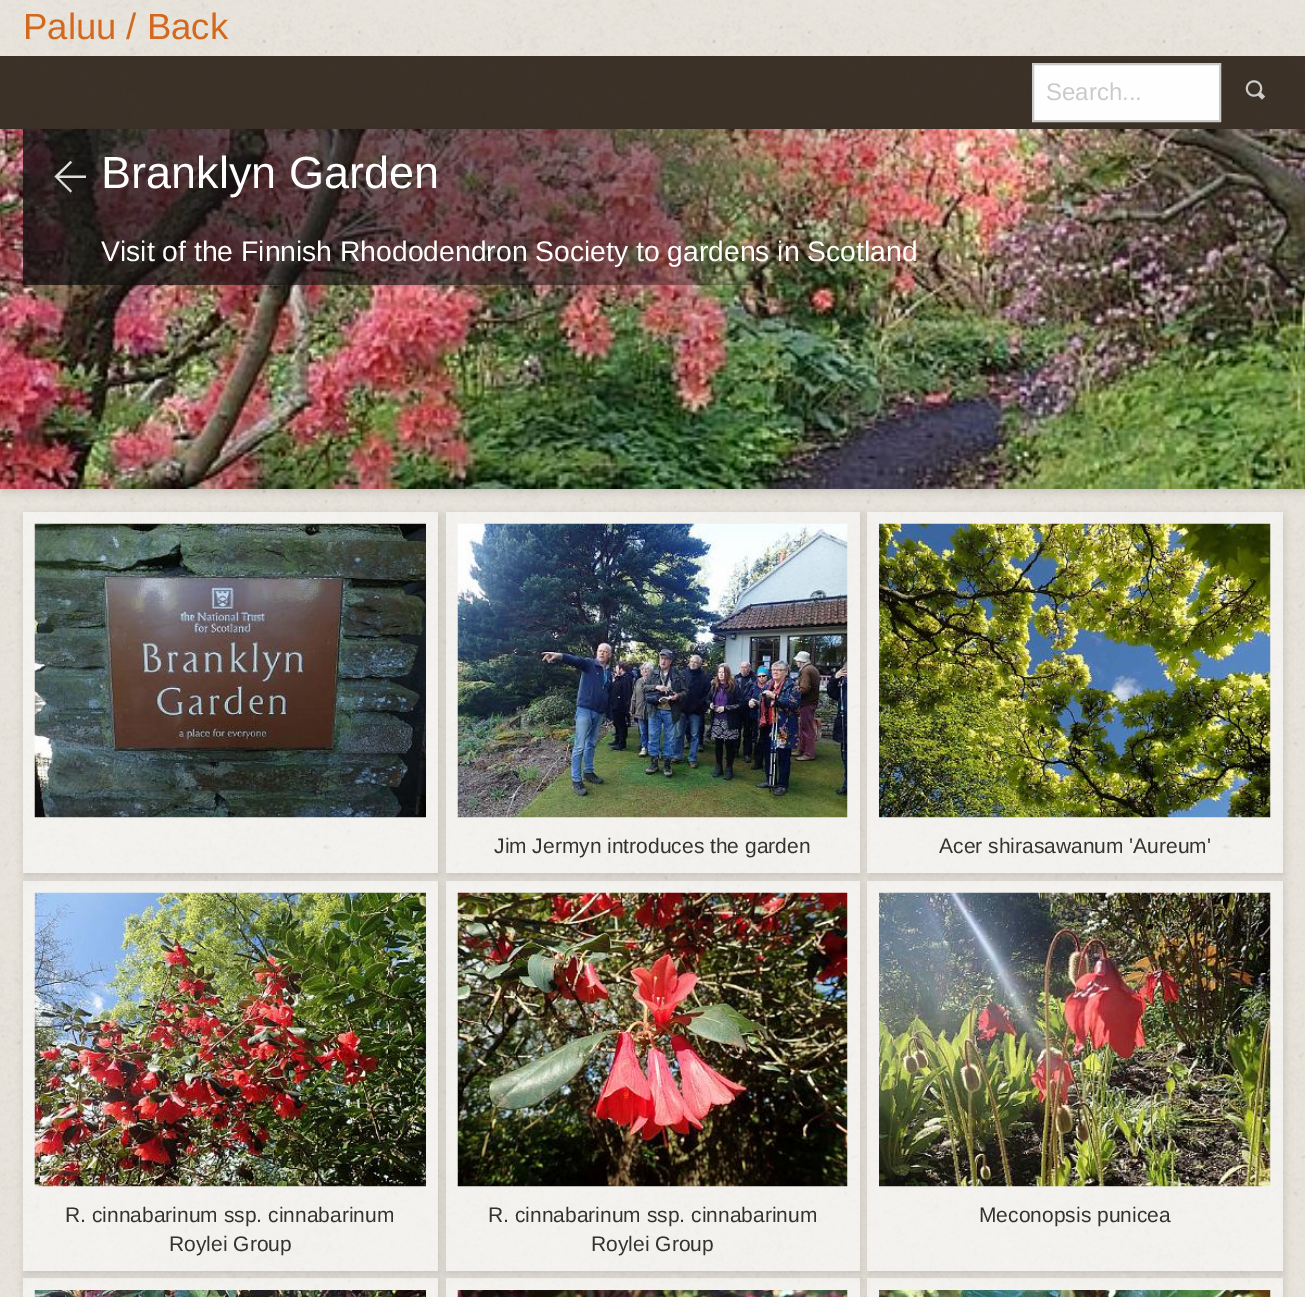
%!PS-Adobe-3.0
%%BoundingBox: 0 0 1305 1297
%%LanguageLevel: 3
%%Pages: 1
%%EndComments
%%BeginProlog
/setink { dup -16 bitshift 255 div exch dup -8 bitshift 255 and 255 div exch 255 and 255 div setrgbcolor } def
/usefont { [ exch dup neg 0 0 3 -1 roll 0 0 ] selectfont } def
/setalpha { dup .setfillconstantalpha .setstrokeconstantalpha } def
/rrect { 5 dict begin { /r /h /w /y /x } { exch def } forall
  x r add y moveto x w add y 2 copy h add r arct x w add y h add x 1 index r arct
  x y h add x y r arct x y 2 copy exch w add exch r arct closepath end } def
/softshadow { 12 dict begin { /a /b /q /h /w /y /x } { exch def } forall gsave /was 0 def
  9 -2 -9 { dup b mul 4 div /e exch def 1 sub .425 mul 2.718 exch exp 1 add a .99 .min exch div /now exch def
    1 1 now sub 1 was sub div sub setalpha /was now def
    w h .min e 2 mul add 0 gt { x e sub y e sub w e 2 mul add h e 2 mul add
      q e add b .6 mul add w h .min 2 div e add .min 0 .max rrect fill } if } for grestore end } def
/drawimage { 5 dict begin { /h /w /y /x /name } { exch def } forall
  gsave x y translate w h scale
  w h 8 [w 0 0 h 0 0] name (r) file false 3 colorimage grestore end } def
%%EndProlog
%%BeginSetup
<< /PageSize [1305 1297] /PageUsesTransparency true >> setpagedevice
%%EndSetup
%%Page: 1 1
0 .pushpdf14devicefilter
0 1297 translate 1 -1 scale
4 setmiterlimit
16#EBE7DF setink
0 0 1305 1297 rectfill
(img1.raw) 0 0 1305 1297 drawimage
/LiberationSans-Regular 36.5 usefont
16#D2691E setink
23 39 moveto (Paluu / Back) show
0.87 setalpha
16#23170D setink
0 56 1305 73 rectfill
1 setalpha
16#000000 setink
2 132 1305 360 0 4.5 0.14 softshadow
16#FEFEFE setink
1033 64 moveto 1220 64 lineto 1220 121 lineto 1033 121 lineto closepath gsave fill grestore
16#CACACA setink
2 setlinewidth
stroke
/LiberationSans-Regular 24 usefont
1046 100 moveto (Search...) show
(img2.raw) 1245 80 21 20 drawimage
(img3.raw) 0 129 1305 360 drawimage
16#DDDDDD setink
54.5 176.5 moveto 70.5 161 lineto 72 162.5 lineto 59 175.5 lineto 86 175.5 lineto 86 178 lineto 59 178 lineto 72 191 lineto 70.5 192.5 lineto closepath fill
/LiberationSans-Regular 45 usefont
16#FFFFFF setink
101 188 moveto (Branklyn Garden) show
/LiberationSans-Regular 28.3 usefont
101 261 moveto (Visit of the Finnish Rhododendron Society to gardens in Scotland) show
gsave
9 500 moveto 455 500 lineto 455 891 lineto 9 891 lineto closepath 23 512 moveto 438 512 lineto 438 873 lineto 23 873 lineto closepath eoclip newpath
16#000000 setink
24 515 416 361 0 4.5 0.14 softshadow
grestore
0.53 setalpha
23 512 415 361 rectfill
1 setalpha
(img4.raw) 34 523 392 295 drawimage
gsave
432 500 moveto 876 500 lineto 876 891 lineto 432 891 lineto closepath 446 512 moveto 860 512 lineto 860 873 lineto 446 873 lineto closepath eoclip newpath
16#000000 setink
447 515 414 361 0 4.5 0.14 softshadow
grestore
0.53 setalpha
446 512 414 361 rectfill
1 setalpha
(img5.raw) 457 523 391 295 drawimage
/LiberationSans-Regular 21 usefont
16#333333 setink
494 853 moveto (Jim Jermyn introduces the garden) show
gsave
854 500 moveto 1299 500 lineto 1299 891 lineto 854 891 lineto closepath 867 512 moveto 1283 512 lineto 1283 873 lineto 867 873 lineto closepath eoclip newpath
16#000000 setink
869 515 415 361 0 4.5 0.14 softshadow
grestore
0.53 setalpha
16#FFFFFF setink
867 512 416 361 rectfill
1 setalpha
(img6.raw) 879 523 392 295 drawimage
16#333333 setink
939 853 moveto (Acer shirasawanum 'Aureum') show
gsave
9 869 moveto 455 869 lineto 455 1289 lineto 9 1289 lineto closepath 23 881 moveto 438 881 lineto 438 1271 lineto 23 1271 lineto closepath eoclip newpath
16#000000 setink
24 884 416 390 0 4.5 0.14 softshadow
grestore
0.53 setalpha
16#FFFFFF setink
23 881 415 390 rectfill
1 setalpha
(img7.raw) 34 892 392 295 drawimage
16#333333 setink
65 1222 moveto (R. cinnabarinum ssp. cinnabarinum) show
169 1251 moveto (Roylei Group) show
gsave
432 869 moveto 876 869 lineto 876 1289 lineto 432 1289 lineto closepath 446 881 moveto 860 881 lineto 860 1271 lineto 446 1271 lineto closepath eoclip newpath
16#000000 setink
447 884 414 390 0 4.5 0.14 softshadow
grestore
0.53 setalpha
16#FFFFFF setink
446 881 414 390 rectfill
1 setalpha
(img8.raw) 457 892 391 295 drawimage
16#333333 setink
488 1222 moveto (R. cinnabarinum ssp. cinnabarinum) show
591 1251 moveto (Roylei Group) show
gsave
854 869 moveto 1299 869 lineto 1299 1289 lineto 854 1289 lineto closepath 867 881 moveto 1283 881 lineto 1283 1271 lineto 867 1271 lineto closepath eoclip newpath
16#000000 setink
869 884 415 390 0 4.5 0.14 softshadow
grestore
0.53 setalpha
16#FFFFFF setink
867 881 416 390 rectfill
1 setalpha
(img9.raw) 879 892 392 295 drawimage
16#333333 setink
979 1222 moveto (Meconopsis punicea) show
gsave
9 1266 moveto 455 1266 lineto 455 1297 lineto 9 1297 lineto closepath 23 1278 moveto 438 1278 lineto 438 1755 lineto 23 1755 lineto closepath eoclip newpath
16#000000 setink
24 1281 416 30 0 4.5 0.14 softshadow
grestore
0.53 setalpha
16#FFFFFF setink
23 1278 415 19 rectfill
1 setalpha
(img10.raw) 34 1290 392 7 drawimage
gsave
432 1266 moveto 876 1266 lineto 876 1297 lineto 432 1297 lineto closepath 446 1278 moveto 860 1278 lineto 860 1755 lineto 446 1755 lineto closepath eoclip newpath
16#000000 setink
447 1281 414 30 0 4.5 0.14 softshadow
grestore
0.53 setalpha
446 1278 414 19 rectfill
1 setalpha
(img11.raw) 457 1290 391 7 drawimage
gsave
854 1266 moveto 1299 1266 lineto 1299 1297 lineto 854 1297 lineto closepath 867 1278 moveto 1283 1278 lineto 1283 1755 lineto 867 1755 lineto closepath eoclip newpath
16#000000 setink
869 1281 415 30 0 4.5 0.14 softshadow
grestore
0.53 setalpha
867 1278 416 19 rectfill
1 setalpha
(img12.raw) 879 1290 392 7 drawimage
.poppdf14devicefilter showpage
%%EOF
